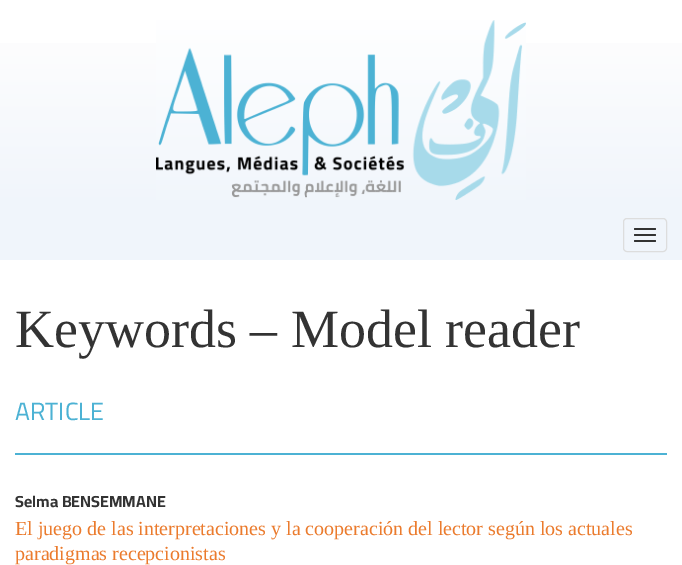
%!PS-Adobe-3.0
%%BoundingBox: 0 0 682 565
%%LanguageLevel: 3
%%Pages: 1
%%EndComments
%%BeginProlog
/setink { dup -16 bitshift 255 div exch dup -8 bitshift 255 and 255 div exch 255 and 255 div setrgbcolor } def
/usefont { [ exch dup neg 0 0 3 -1 roll 0 0 ] selectfont } def
/rrect { 5 dict begin { /r /h /w /y /x } { exch def } forall
  x r add y moveto x w add y 2 copy h add r arct x w add y h add x 1 index r arct
  x y h add x y r arct x y 2 copy exch w add exch r arct closepath end } def
/drawimage { 5 dict begin { /h /w /y /x /name } { exch def } forall
  gsave x y translate w h scale
  w h 8 [w 0 0 h 0 0] name (r) file false 3 colorimage grestore end } def
%%EndProlog
%%BeginSetup
<< /PageSize [682 565] >> setpagedevice
%%EndSetup
%%Page: 1 1
0 565 translate 1 -1 scale
4 setmiterlimit
16#FFFFFF setink
0 0 682 565 rectfill
gsave 0 43 moveto 682 43 lineto 682 210 lineto 0 210 lineto closepath clip newpath
<< /ShadingType 2 /ColorSpace /DeviceRGB /Coords [341 10 341 210] /Extend [true true] /Function << /FunctionType 2 /Domain [0 1] /C0 [1 1 1] /C1 [0.941 0.961 0.984] /N 1 >> >> shfill grestore
(img1.raw) 156 20 370 180 drawimage
16#F0F5FB setink
0 210 682 50 rectfill
16#DDDDDD setink
623.5 218.5 43 33 3.5 rrect stroke
16#333333 setink
634 228 22 2 1 rrect fill
634 234 22 2 1 rrect fill
634 240 22 2 1 rrect fill
/LiberationSerif-Regular 54 usefont
15 347 moveto (Keywords – Model reader) show
16#4CB2D4 setink
15 453 652 2 rectfill
/Cairo-Regular 25 usefont
15 420 moveto (ARTICLE) show
/Cairo-Bold 16 usefont
16#333333 setink
15 507 moveto (Selma BENSEMMANE) show
/LiberationSerif-Regular 20 usefont
16#EB7B2D setink
15 535 moveto (El juego de las interpretaciones y la cooperación del lector según los actuales) show
15 560 moveto (paradigmas recepcionistas) show
showpage
%%EOF
